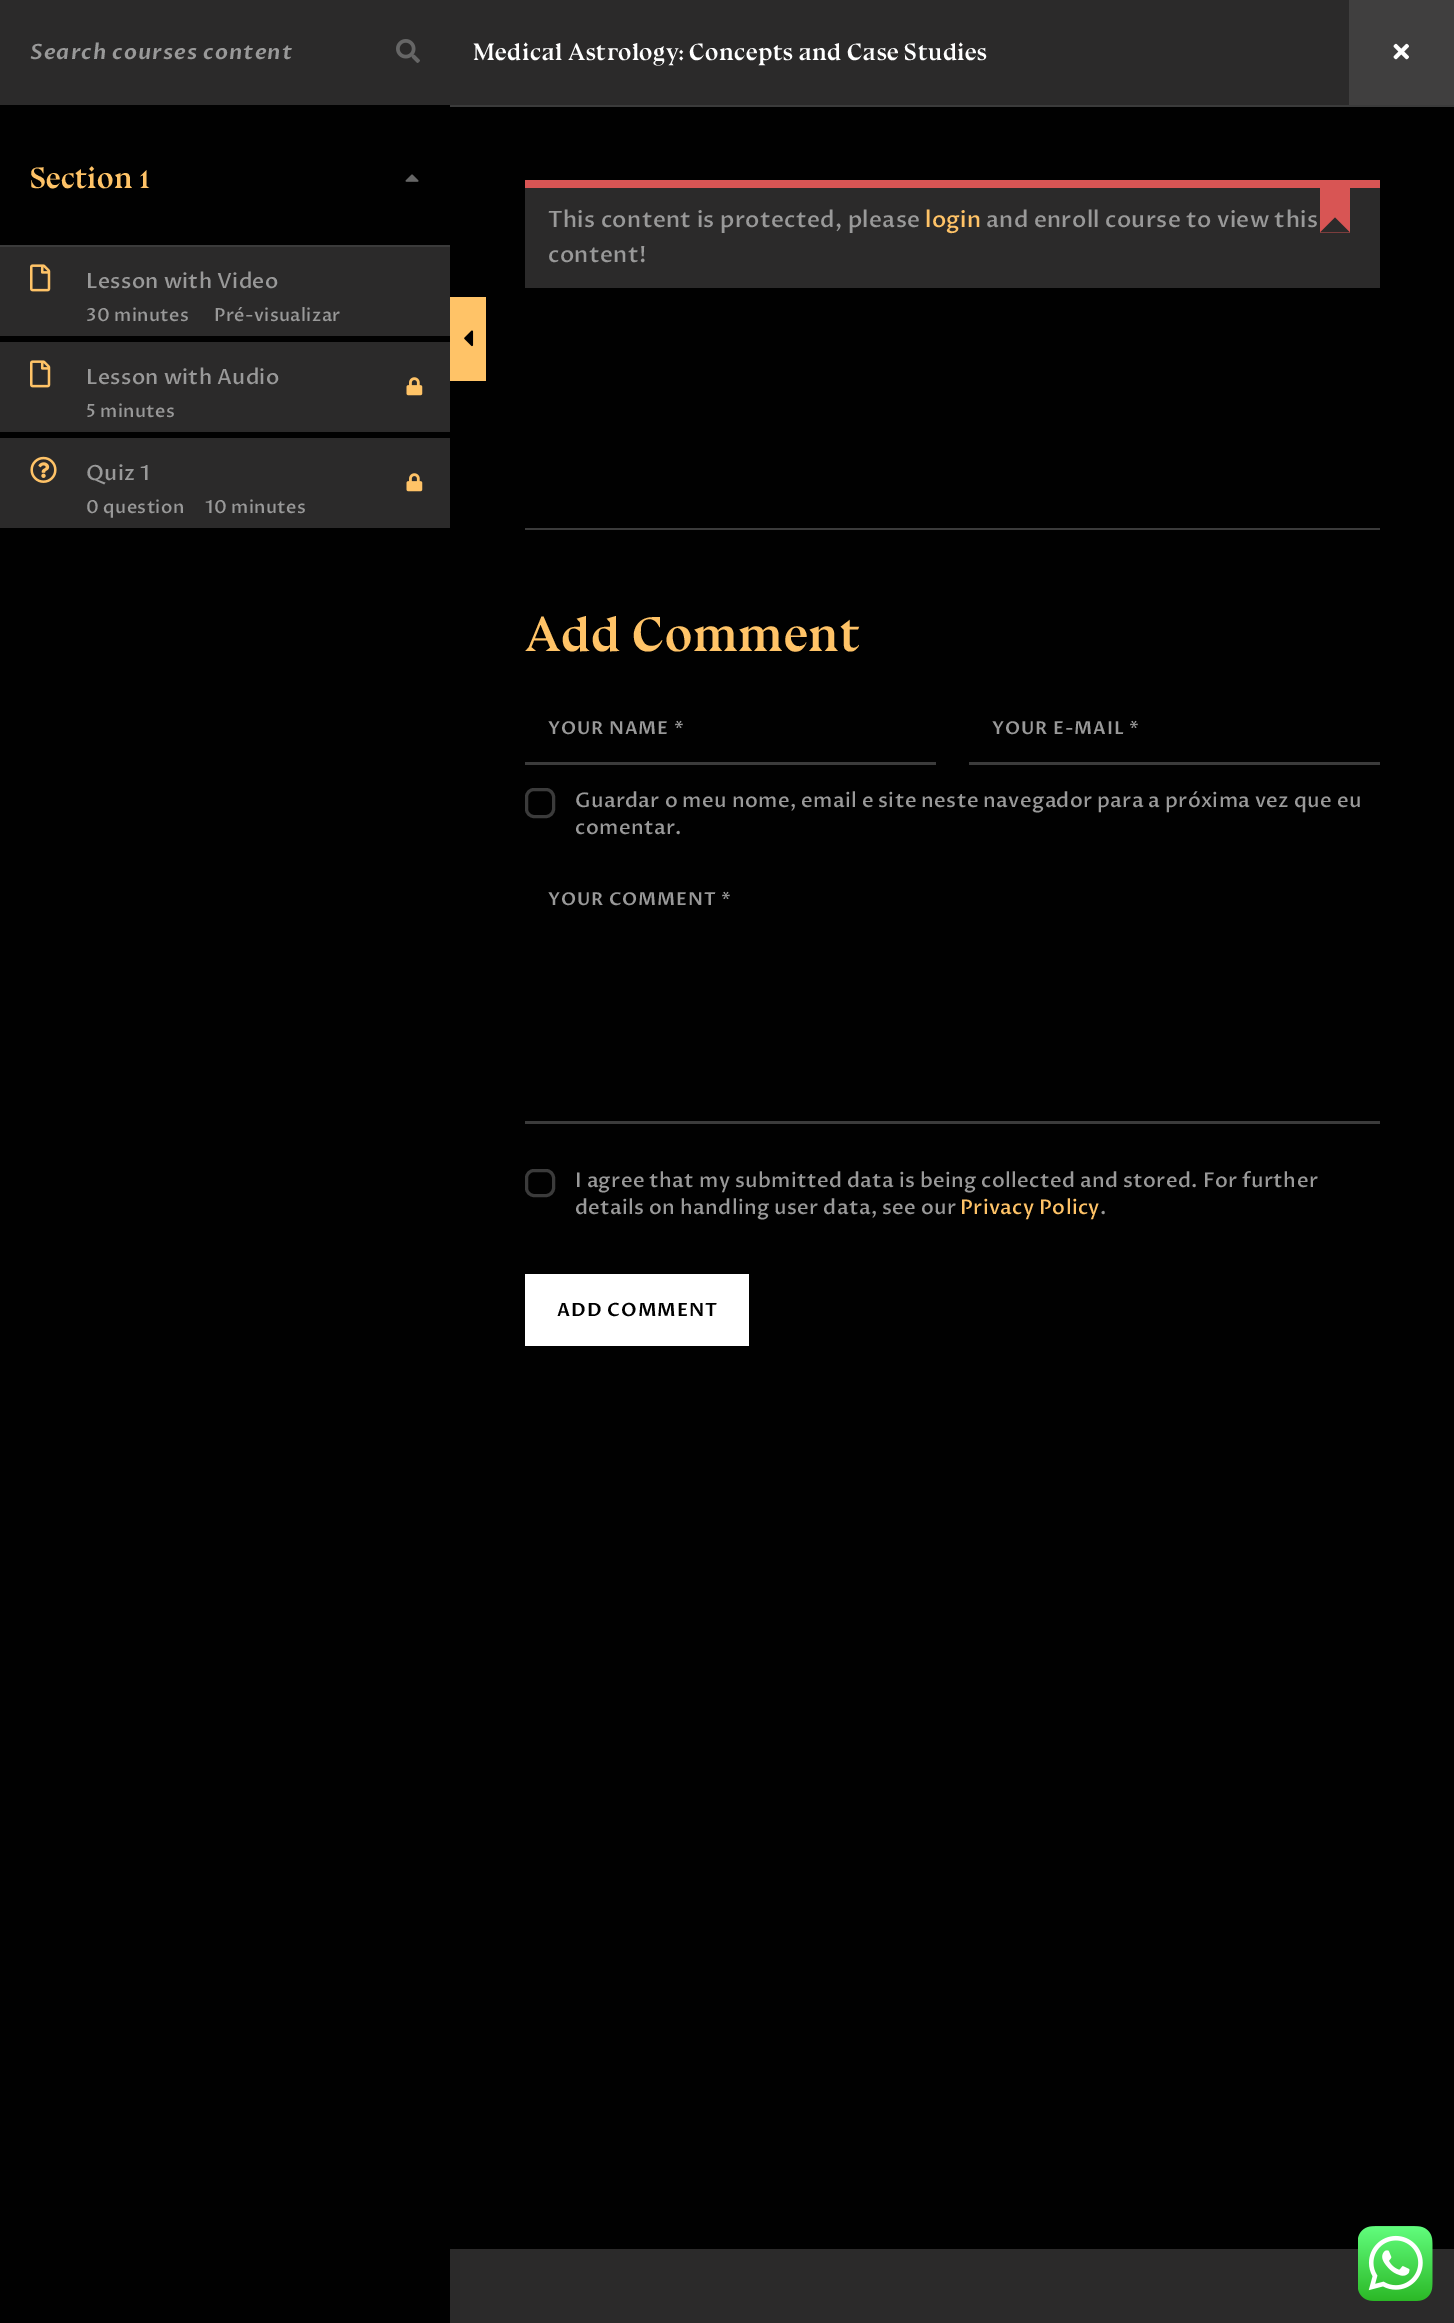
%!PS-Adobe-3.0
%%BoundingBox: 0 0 1454 2323
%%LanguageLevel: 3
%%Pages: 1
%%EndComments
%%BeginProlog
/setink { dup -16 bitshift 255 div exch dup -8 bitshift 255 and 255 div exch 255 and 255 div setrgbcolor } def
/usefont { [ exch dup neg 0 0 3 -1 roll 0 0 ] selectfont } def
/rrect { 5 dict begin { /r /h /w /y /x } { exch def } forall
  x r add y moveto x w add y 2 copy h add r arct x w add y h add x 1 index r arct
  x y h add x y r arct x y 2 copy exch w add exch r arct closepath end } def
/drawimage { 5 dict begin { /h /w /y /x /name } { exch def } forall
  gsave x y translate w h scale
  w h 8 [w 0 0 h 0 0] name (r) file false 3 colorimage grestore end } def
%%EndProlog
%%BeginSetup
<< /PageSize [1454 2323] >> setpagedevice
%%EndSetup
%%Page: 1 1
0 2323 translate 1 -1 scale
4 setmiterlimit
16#010101 setink
0 0 1454 2323 rectfill
16#2B2A2A setink
0 0 1349 105 rectfill
/ProzaLibre-SemiBoldItalic 21 usefont
16#999999 setink
30 59 moveto 1.05 0 (Search courses content) ashow
(img1.raw) 396 39 24 24 drawimage
16#3B3B3B setink
0 245 450 2 rectfill
/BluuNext-Bold 30 usefont
16#FFC367 setink
30 188 moveto (Section 1) show
(img2.raw) 405 174 14 8 drawimage
16#2B2A2A setink
0 247 450 89 rectfill
(img3.raw) 30 264 21 28 drawimage
/ProzaLibre-Medium 21 usefont
16#999999 setink
86 288 moveto 0.35 0 (Lesson with Video) ashow
/ProzaLibre-Medium 18 usefont
86 321 moveto 0.35 0 (30 minutes) ashow
214 321 moveto 0.35 0 (Pré-visualizar) ashow
16#2B2A2A setink
0 342 450 90 rectfill
(img3.raw) 30 360 21 28 drawimage
/ProzaLibre-Medium 21 usefont
16#999999 setink
86 384 moveto 0.35 0 (Lesson with Audio) ashow
(img4.raw) 406 377 17 19 drawimage
/ProzaLibre-Medium 18 usefont
86 417 moveto 0.35 0 (5 minutes) ashow
16#2B2A2A setink
0 438 450 90 rectfill
(img5.raw) 30 456 27 27 drawimage
/ProzaLibre-Medium 21 usefont
16#999999 setink
86 480 moveto 0.35 0 (Quiz 1) ashow
(img4.raw) 406 473 17 19 drawimage
/ProzaLibre-Medium 18 usefont
86 513 moveto 0.35 0 (0 question) ashow
205 513 moveto 0.35 0 (10 minutes) ashow
16#3B3B3B setink
450 105 1004 2 rectfill
/BluuNext-Bold 24 usefont
16#FFFFFF setink
473 60 moveto 0.35 0 (Medical Astrology: Concepts and Case Studies) ashow
16#403F3F setink
1349 0 105 105 rectfill
(img6.raw) 1393 43 16 17 drawimage
16#FFC367 setink
450 297 36 84 rectfill
(img7.raw) 464 330 10 17 drawimage
16#2B2A2A setink
525 188 855 100 rectfill
16#D85554 setink
525 180 855 8 rectfill
/ProzaLibre-Medium 22.5 usefont
16#999999 setink
548 227 moveto 0.35 0 (This content is protected, please) ashow
16#FFC367 setink
925 227 moveto 0.35 0 (login) ashow
16#999999 setink
986 227 moveto 0.35 0 (and enroll course to view this) ashow
16#D85554 setink
1320 188 30 45 rectfill
16#2B2A2A setink
1350 232.5 moveto 1320 232.5 lineto 1335 217.5 lineto closepath fill
16#999999 setink
548 262 moveto 0.35 0 (content!) ashow
16#3B3B3B setink
525 528 855 2 rectfill
/BluuNext-Bold 49.5 usefont
16#FFC367 setink
525 651 moveto 0.35 0 (Add Comment) ashow
16#3B3B3B setink
525 762 411 3 rectfill
/ProzaLibre-SemiBold 17.75 usefont
16#999999 setink
548 734 moveto 0.9 0 (YOUR NAME *) ashow
16#3B3B3B setink
969 762 411 3 rectfill
16#999999 setink
992 734 moveto 0.9 0 (YOUR E-MAIL *) ashow
16#3B3B3B setink
3 setlinewidth
526.5 789.5 27 27 7.5 rrect stroke
/ProzaLibre-Medium 20.25 usefont
16#999999 setink
575 807 moveto 0.35 0 (Guardar o meu nome, email e site neste navegador para a próxima vez que eu) ashow
575 834 moveto 0.35 0 (comentar.) ashow
16#3B3B3B setink
525 1121 855 3 rectfill
/ProzaLibre-SemiBold 17.75 usefont
16#999999 setink
548 905 moveto 0.9 0 (YOUR COMMENT *) ashow
16#3B3B3B setink
526.5 1170.5 27 25 7.5 rrect stroke
/ProzaLibre-Medium 20.25 usefont
16#999999 setink
575 1187 moveto 0.35 0 (I agree that my submitted data is being collected and stored. For further) ashow
575 1214 moveto 0.35 0 (details on handling user data, see our) ashow
16#FFC367 setink
960 1214 moveto 0.35 0 (Privacy Policy) ashow
16#999999 setink
1100 1214 moveto 0.35 0 (.) ashow
16#FFFFFF setink
525 1274 224 72 rectfill
/ProzaLibre-SemiBold 18.25 usefont
16#000000 setink
557 1316 moveto 1 0 (ADD COMMENT) ashow
16#2B2A2A setink
450 2249 1004 74 rectfill
(img8.raw) 1358 2226 75 75 drawimage
showpage
%%EOF
